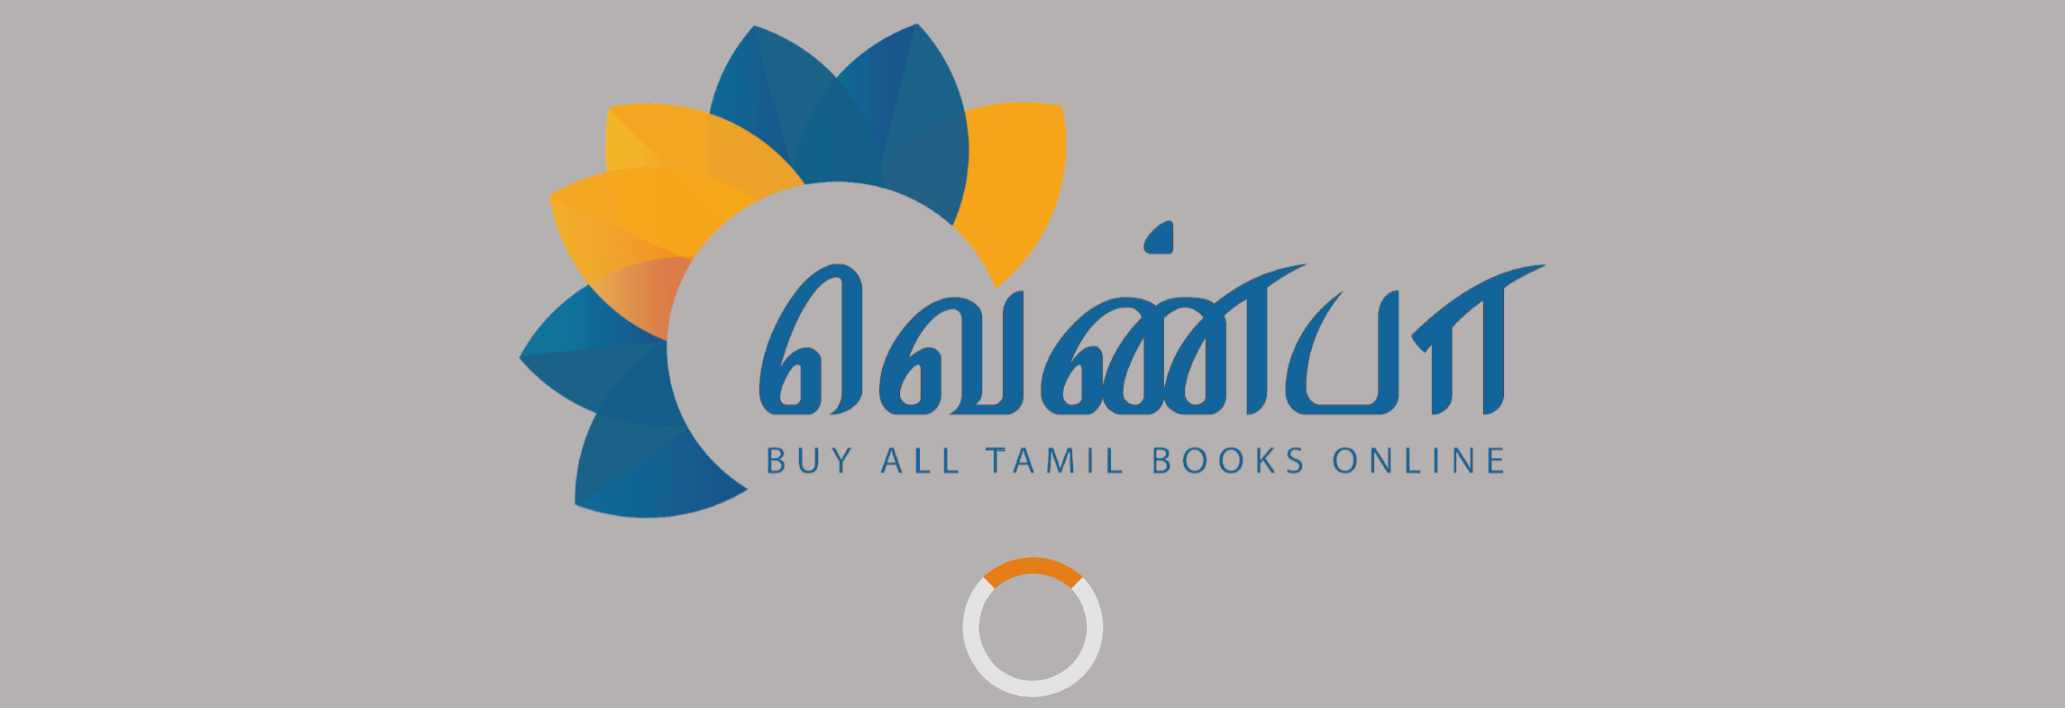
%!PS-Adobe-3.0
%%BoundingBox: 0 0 2065 708
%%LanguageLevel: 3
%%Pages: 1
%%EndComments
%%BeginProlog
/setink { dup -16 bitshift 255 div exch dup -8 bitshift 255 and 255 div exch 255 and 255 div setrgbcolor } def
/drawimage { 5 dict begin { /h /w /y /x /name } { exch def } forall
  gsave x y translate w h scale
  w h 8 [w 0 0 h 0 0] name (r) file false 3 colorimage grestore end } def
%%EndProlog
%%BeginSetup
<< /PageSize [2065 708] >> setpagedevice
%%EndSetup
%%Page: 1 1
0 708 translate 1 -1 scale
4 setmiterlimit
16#B5B1B1 setink
0 0 2065 708 rectfill
(img1.raw) 518 22 1029 497 drawimage
16#E67E17 setink
16 setlinewidth
989 583 moveto 1013 559.5 1053 559.5 1077 583 curveto stroke
16#E3E3E3 setink
1077 583 moveto 1088.5 594.5 1095 610.5 1095 627 curveto 1095 682 1028 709.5 989 671 curveto 980.5 662 974.5 651 972 639 curveto 968 619 974.5 597.5 989 583 curveto stroke
showpage
%%EOF
